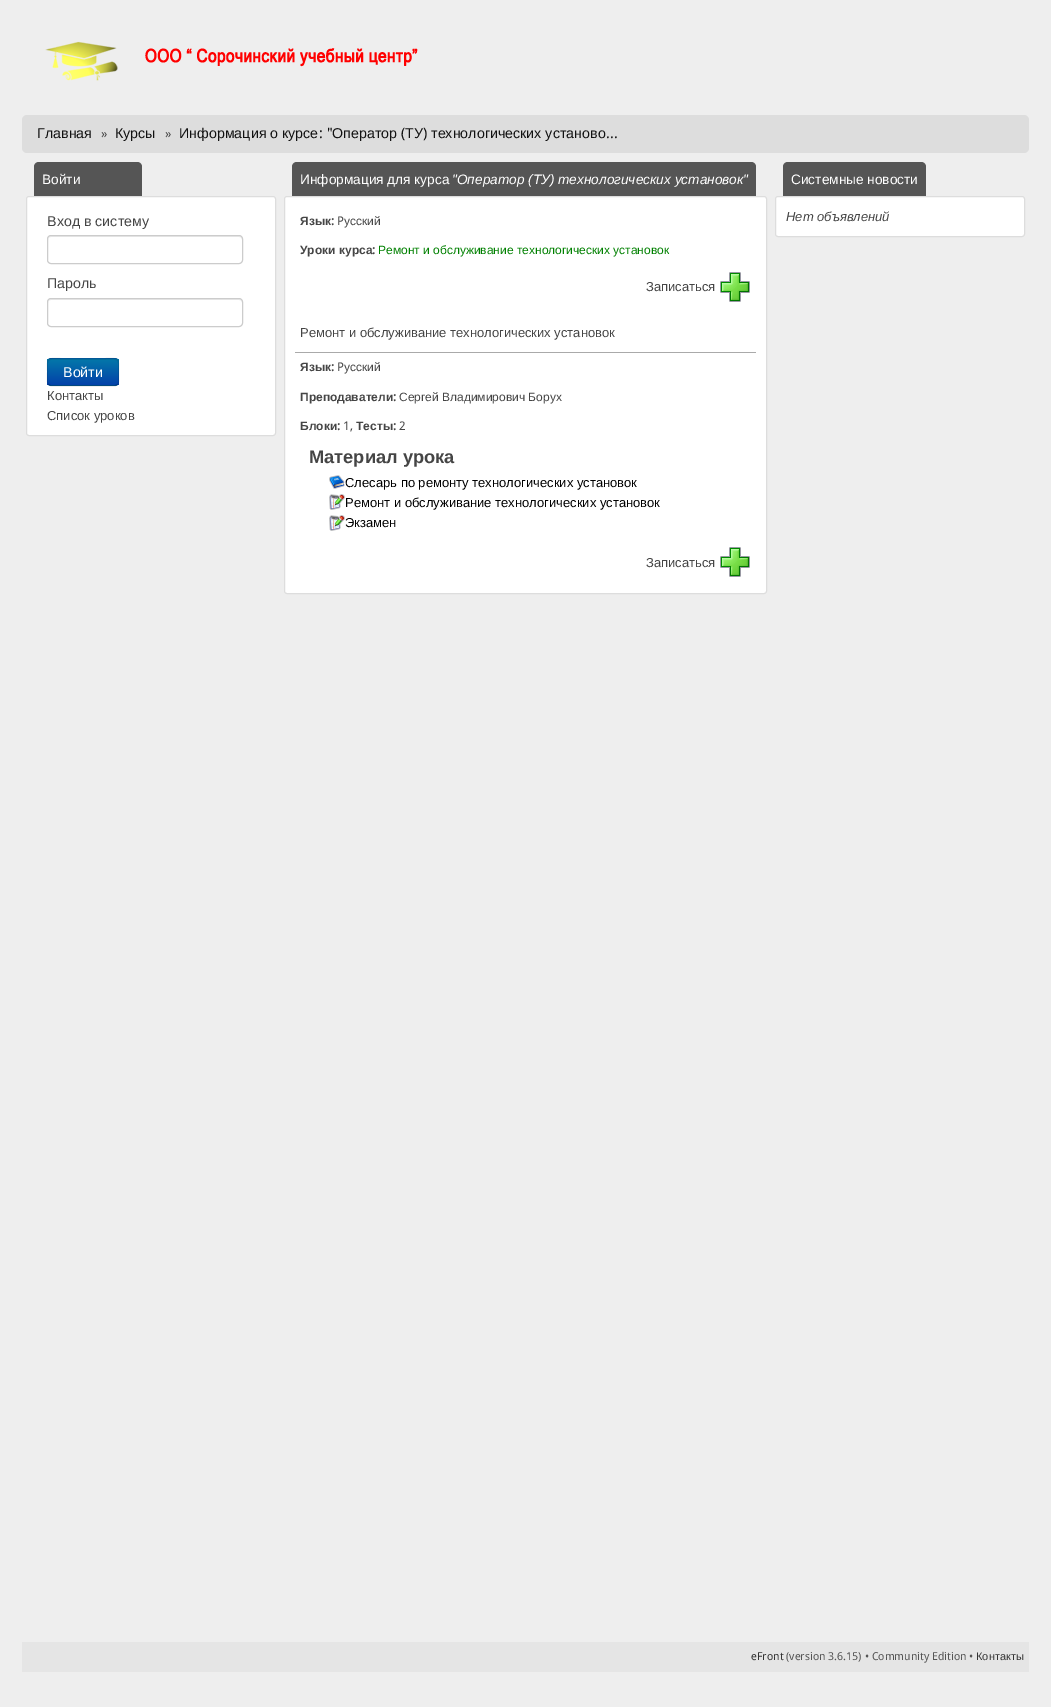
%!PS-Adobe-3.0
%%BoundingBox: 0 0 1051 1707
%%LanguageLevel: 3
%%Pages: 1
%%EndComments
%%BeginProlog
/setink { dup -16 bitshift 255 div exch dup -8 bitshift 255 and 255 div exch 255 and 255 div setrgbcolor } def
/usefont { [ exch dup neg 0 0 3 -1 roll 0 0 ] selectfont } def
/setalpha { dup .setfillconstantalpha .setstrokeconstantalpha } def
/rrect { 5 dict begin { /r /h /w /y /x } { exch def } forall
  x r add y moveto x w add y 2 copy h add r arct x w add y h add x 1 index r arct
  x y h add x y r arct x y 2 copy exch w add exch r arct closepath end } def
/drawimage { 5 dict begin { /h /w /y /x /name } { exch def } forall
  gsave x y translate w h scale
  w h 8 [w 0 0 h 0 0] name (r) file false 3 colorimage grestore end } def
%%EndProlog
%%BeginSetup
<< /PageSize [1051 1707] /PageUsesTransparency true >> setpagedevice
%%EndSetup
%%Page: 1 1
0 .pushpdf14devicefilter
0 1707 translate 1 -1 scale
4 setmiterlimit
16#EEEEEE setink
0 0 1051 1707 rectfill
(img1.raw) 45 41 373 40 drawimage
16#DDDDDD setink
22 115 1007 38 5 rrect fill
/LiberationSans-Regular 14.25 usefont
16#111111 setink
37 138 moveto (Главная) show
/DroidSans-Regular 13 usefont
16#454545 setink
101 138 moveto (») show
/LiberationSans-Regular 14.25 usefont
16#111111 setink
115 138 moveto (Курсы) show
/DroidSans-Regular 13 usefont
16#454545 setink
165 138 moveto (») show
/LiberationSans-Regular 14.25 usefont
16#111111 setink
179 138 moveto (Информация о курсе) show
/DroidSans-Regular 14.25 usefont
319 138 moveto (: ") show
/LiberationSans-Regular 14.25 usefont
332 138 moveto (Оператор) show
/DroidSans-Regular 14.25 usefont
401 138 moveto (\() show
/LiberationSans-Regular 14.25 usefont
405 138 moveto (ТУ) show
/DroidSans-Regular 14.25 usefont
423 138 moveto (\)) show
/LiberationSans-Regular 14.25 usefont
431 138 moveto (технологических установо) show
/DroidSans-Regular 14.25 usefont
606 138 moveto (...) show
16#555555 setink
39 162 moveto 137 162 lineto 140 162 142 164 142 167 curveto 142 196 lineto 34 196 lineto 34 167 lineto 34 164 36 162 39 162 curveto closepath fill
/LiberationSans-Regular 13.65 usefont
16#FFFFFF setink
42 184 moveto (Войти) show
26.5 196.5 249 239 2.5 rrect gsave fill grestore
16#DDDDDD setink
stroke
/LiberationSans-Regular 14.25 usefont
16#454545 setink
47 226 moveto (Вход в систему) show
16#ECECEC setink
51 237 moveto 239 237 lineto 241 237 242 238 242 240 curveto 242 238 241 236 239 236 curveto 51 236 lineto 49 236 48 238 48 240 curveto 48 238 49 237 51 237 curveto closepath fill
16#CCCCCC setink
47.5 235.5 195 28 3.5 rrect stroke
16#454545 setink
47 288 moveto (Пароль) show
16#ECECEC setink
51 300 moveto 239 300 lineto 241 300 242 301 242 303 curveto 242 301 241 299 239 299 curveto 51 299 lineto 49 299 48 301 48 303 curveto 48 301 49 300 51 300 curveto closepath fill
16#CCCCCC setink
47.5 298.5 195 28 3.5 rrect stroke
16#0362A9 setink
47 358 72 28 4 rrect fill
gsave
47 358 72 28 4 rrect clip newpath
gsave 47 359 moveto 119 359 lineto 119 385 lineto 47 385 lineto closepath clip newpath
<< /ShadingType 2 /ColorSpace /DeviceRGB /Coords [83 359 83 385] /Extend [true true] /Function << /FunctionType 2 /Domain [0 1] /C0 [0.012 0.471 0.663] /C1 [0.012 0.255 0.663] /N 1 >> >> shfill grestore
grestore
0.07 setalpha
16#000000 setink
51 360 moveto 115 360 lineto 117 360 118 361 118 363 curveto 118 356 109 359 104 359 curveto 62 359 lineto 57 359 48 356 48 363 curveto 48 361 49 360 51 360 curveto closepath fill
0.25 setalpha
117.5 384.5 moveto 115.5 385.5 lineto 50.5 385.5 lineto 48.5 384.5 lineto stroke
0.1 setalpha
48.5 384.5 moveto 46.5 382 47.5 374.5 47.5 372 curveto 47.5 356.5 45.5 358.5 61.5 358.5 curveto 104.5 358.5 lineto 120.5 358.5 118.5 356.5 118.5 372 curveto 118.5 374.5 119.5 382 117.5 384.5 curveto stroke
1 setalpha
16#FFFFFF setink
63 377 moveto (Войти) show
/LiberationSans-Regular 13 usefont
16#454545 setink
47 400 moveto (Контакты) show
47 420 moveto (Список уроков) show
16#555555 setink
297 162 moveto 751 162 lineto 754 162 756 164 756 167 curveto 756 196 lineto 292 196 lineto 292 167 lineto 292 164 294 162 297 162 curveto closepath fill
/LiberationSans-Regular 13.65 usefont
16#FFFFFF setink
300 184 moveto (Информация для курса) show
/LiberationSans-Italic 13.65 usefont
452 184 moveto ("Оператор \(ТУ\) технологических установок") show
284.5 196.5 482 397 2.5 rrect gsave fill grestore
16#DDDDDD setink
stroke
/LiberationSans-Bold 12 usefont
16#454545 setink
300 225 moveto (Язык) show
/DroidSans-Bold 12 usefont
331 225 moveto (:) show
/DroidSans-Regular 12 usefont
337 225 moveto (P) show
/LiberationSans-Regular 12 usefont
344 225 moveto (усский) show
/LiberationSans-Bold 12 usefont
300 254 moveto (Уроки курса) show
/DroidSans-Bold 12 usefont
372 254 moveto (:) show
/LiberationSans-Regular 12 usefont
16#008000 setink
378 254 moveto (Ремонт и обслуживание технологических установок) show
/LiberationSans-Regular 13 usefont
16#454545 setink
646 291 moveto (Записаться) show
(img2.raw) 720 272 30 30 drawimage
16#AAAAAA setink
295 352 461 1 rectfill
16#454545 setink
300 337 moveto (Ремонт и обслуживание) show
450 337 moveto (технологических установок) show
/LiberationSans-Bold 12 usefont
300 371 moveto (Язык) show
/DroidSans-Bold 12 usefont
331 371 moveto (:) show
/DroidSans-Regular 12 usefont
337 371 moveto (P) show
/LiberationSans-Regular 12 usefont
344 371 moveto (усский) show
/LiberationSans-Bold 12 usefont
300 401 moveto (Преподаватели) show
/DroidSans-Bold 12 usefont
393 401 moveto (:) show
/LiberationSans-Regular 12 usefont
399 401 moveto (Сергей Владимирович Борух) show
/LiberationSans-Bold 12 usefont
300 430 moveto (Блоки) show
/DroidSans-Bold 12 usefont
337 430 moveto (:) show
/DroidSans-Regular 12 usefont
343 430 moveto (1,) show
/LiberationSans-Bold 12 usefont
356 430 moveto (Тесты) show
/DroidSans-Bold 12 usefont
393 430 moveto (:) show
/DroidSans-Regular 12 usefont
399 430 moveto (2) show
/LiberationSans-Bold 18.25 usefont
309 463 moveto (Материал урока) show
(img3.raw) 329 475 16 14 drawimage
/LiberationSans-Regular 13 usefont
16#000000 setink
345 487 moveto (Слесарь по ремонту технологических установок) show
(img4.raw) 329 494 16 16 drawimage
345 507 moveto (Ремонт и обслуживание технологических установок) show
(img4.raw) 329 515 16 16 drawimage
345 527 moveto (Экзамен) show
16#454545 setink
646 567 moveto (Записаться) show
(img2.raw) 720 547 30 30 drawimage
16#555555 setink
788 162 moveto 921 162 lineto 924 162 926 164 926 167 curveto 926 196 lineto 783 196 lineto 783 167 lineto 783 164 785 162 788 162 curveto closepath fill
/LiberationSans-Regular 13.65 usefont
16#FFFFFF setink
791 184 moveto (Системные новости) show
775.5 196.5 249 40 2.5 rrect gsave fill grestore
16#DDDDDD setink
stroke
/LiberationSans-Italic 13 usefont
16#454545 setink
786 221 moveto (Нет объявлений) show
16#E5E5E5 setink
22 1642 1007 30 rectfill
/DroidSans-Regular 11 usefont
16#333333 setink
751 1660 moveto (eFront) show
16#555555 setink
786 1660 moveto (\(version 3.6.15\) • Community Edition •) show
/LiberationSans-Regular 11 usefont
16#333333 setink
976 1660 moveto (Контакты) show
.poppdf14devicefilter showpage
%%EOF
